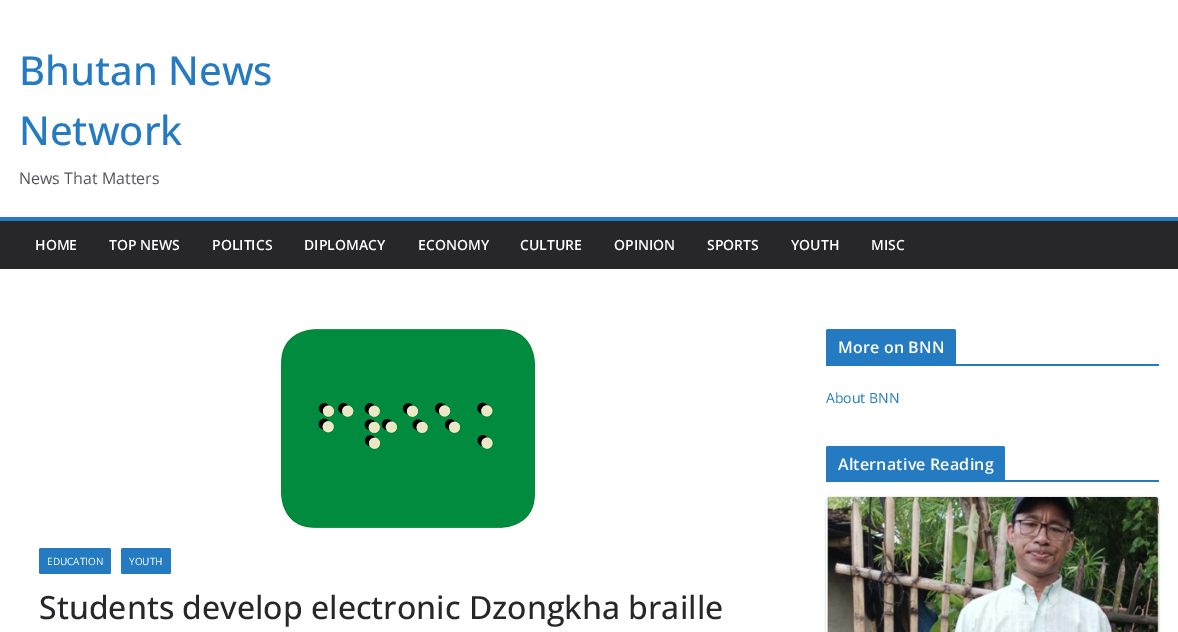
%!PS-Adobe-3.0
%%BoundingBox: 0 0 1178 632
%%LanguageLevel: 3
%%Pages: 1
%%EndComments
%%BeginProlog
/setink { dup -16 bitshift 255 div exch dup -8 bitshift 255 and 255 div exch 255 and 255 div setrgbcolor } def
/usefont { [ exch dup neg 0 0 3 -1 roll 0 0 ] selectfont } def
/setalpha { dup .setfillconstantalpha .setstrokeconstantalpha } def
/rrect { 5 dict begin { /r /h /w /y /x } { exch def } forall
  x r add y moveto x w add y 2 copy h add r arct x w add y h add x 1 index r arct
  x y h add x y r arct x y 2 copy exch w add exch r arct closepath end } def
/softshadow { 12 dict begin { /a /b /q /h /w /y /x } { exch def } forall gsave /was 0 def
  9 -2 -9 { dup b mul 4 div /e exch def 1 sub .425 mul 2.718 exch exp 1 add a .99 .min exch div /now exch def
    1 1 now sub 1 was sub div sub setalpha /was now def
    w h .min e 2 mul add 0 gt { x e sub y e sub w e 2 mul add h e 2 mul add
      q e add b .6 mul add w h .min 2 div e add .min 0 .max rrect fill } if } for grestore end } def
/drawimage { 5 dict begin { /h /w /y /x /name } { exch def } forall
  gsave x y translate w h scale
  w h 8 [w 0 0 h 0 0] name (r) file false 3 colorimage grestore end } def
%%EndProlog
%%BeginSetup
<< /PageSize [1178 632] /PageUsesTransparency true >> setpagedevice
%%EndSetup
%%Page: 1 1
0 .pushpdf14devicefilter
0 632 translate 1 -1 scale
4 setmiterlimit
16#FFFFFF setink
0 0 1178 632 rectfill
/OpenSans-Medium 40 usefont
16#257BC1 setink
19 85 moveto (Bhutan News) show
19 145 moveto (Network) show
/OpenSans-Regular 16 usefont
16#52525B setink
19 184 moveto (News That Matters) show
16#27272A setink
0 221 1178 48 rectfill
16#257BC1 setink
0 217 1178 4 rectfill
/OpenSans-SemiBold 14 usefont
16#FFFFFF setink
[
    [(HOME) 35 250]
    [(TOP NEWS) 109 250]
    [(POLITICS) 212 250]
    [(DIPLOMACY) 304 250]
    [(ECONOMY) 418 250]
    [(CULTURE) 520 250]
    [(OPINION) 614 250]
    [(SPORTS) 707 250]
    [(YOUTH) 791 250]
    [(MISC) 871 250]
] { aload pop moveto show } forall
16#257BC1 setink
826 364 333 2 rectfill
828 329 moveto 954 329 lineto 955 329 956 330 956 331 curveto 956 364 lineto 826 364 lineto 826 331 lineto 826 330 827 329 828 329 curveto closepath fill
/OpenSans-SemiBold 16 usefont
16#FFFFFF setink
838 353 moveto 0.2 0 (More on BNN) ashow
/OpenSans-Regular 14 usefont
16#257BC1 setink
826 403 moveto (About BNN) show
826 480 333 2 rectfill
828 446 moveto 1003 446 lineto 1004 446 1005 447 1005 448 curveto 1005 480 lineto 826 480 lineto 826 448 lineto 826 447 827 446 828 446 curveto closepath fill
/OpenSans-SemiBold 16 usefont
16#FFFFFF setink
838 470 moveto 0.2 0 (Alternative Reading) ashow
16#000000 setink
826 497 333 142 4 1 0.24 softshadow
(img1.raw) 826 497 333 135 drawimage
(img2.raw) 281 329 254 199 drawimage
16#257BC1 setink
39 548 72 26 2 rrect fill
/OpenSans-Regular 10 usefont
16#FFFFFF setink
47 565 moveto (EDUCATION) show
16#257BC1 setink
121 548 50 26 2 rrect fill
16#FFFFFF setink
129 565 moveto (YOUTH) show
/OpenSans-Medium 32 usefont
16#27272A setink
39 619 moveto (Students develop electronic Dzongkha braille) show
.poppdf14devicefilter showpage
%%EOF
